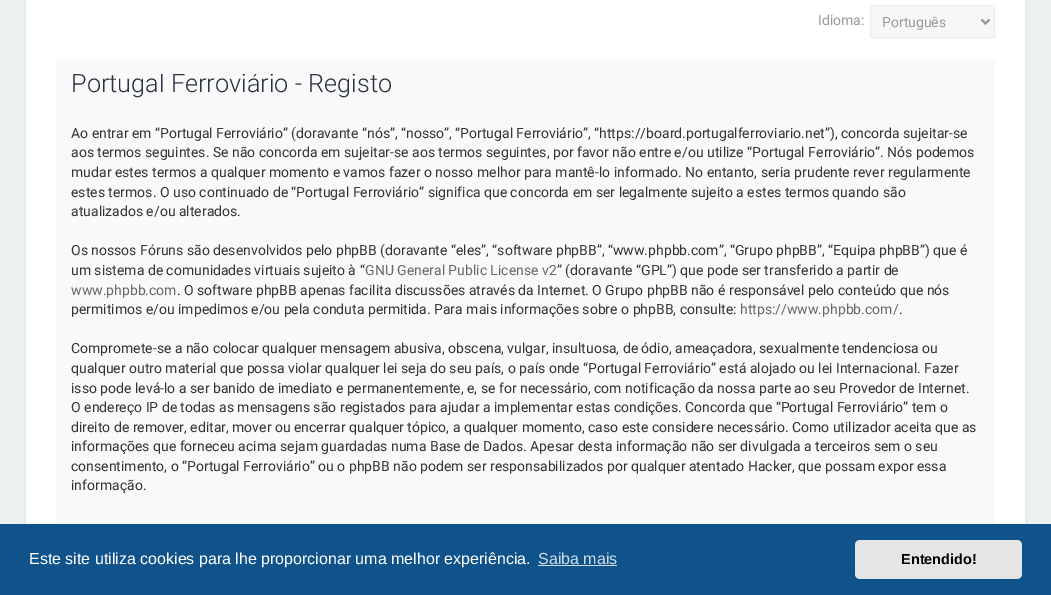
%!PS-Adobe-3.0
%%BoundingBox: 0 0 1051 595
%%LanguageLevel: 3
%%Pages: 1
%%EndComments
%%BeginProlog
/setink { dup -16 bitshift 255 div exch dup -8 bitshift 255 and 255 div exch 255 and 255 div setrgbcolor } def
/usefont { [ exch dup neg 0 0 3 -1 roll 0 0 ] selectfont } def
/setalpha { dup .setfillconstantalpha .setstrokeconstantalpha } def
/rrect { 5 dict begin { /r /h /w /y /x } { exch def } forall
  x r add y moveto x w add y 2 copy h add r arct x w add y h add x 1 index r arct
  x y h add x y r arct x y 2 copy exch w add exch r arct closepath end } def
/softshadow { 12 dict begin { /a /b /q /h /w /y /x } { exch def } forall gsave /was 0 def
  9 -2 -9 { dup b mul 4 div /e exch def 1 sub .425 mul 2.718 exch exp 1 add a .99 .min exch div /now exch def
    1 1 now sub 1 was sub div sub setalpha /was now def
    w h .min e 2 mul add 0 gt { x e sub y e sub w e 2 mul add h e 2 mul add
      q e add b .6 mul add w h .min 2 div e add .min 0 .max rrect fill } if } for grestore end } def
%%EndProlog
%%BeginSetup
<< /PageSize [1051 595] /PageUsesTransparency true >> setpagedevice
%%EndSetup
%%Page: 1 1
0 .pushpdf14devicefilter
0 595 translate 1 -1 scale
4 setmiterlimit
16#ECF0F1 setink
0 0 1051 595 rectfill
16#000000 setink
26 -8 999 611 0 2.5 0.05 softshadow
16#FFFFFF setink
26 0 999 524 rectfill
/Roboto-Regular 14 usefont
16#999999 setink
818 25 moveto (Idioma:) show
16#F7F7F7 setink
870.5 5.5 moveto 994.5 5.5 lineto 994.5 37.5 lineto 870.5 37.5 lineto closepath gsave fill grestore
16#EDECEC setink
stroke
16#949494 setink
2 setlinewidth
981.5 19.5 moveto 985.5 23.5 lineto 989.5 19.5 lineto stroke
16#999999 setink
882 27 moveto (Português) show
16#F9F9F9 setink
56 59 939 465 rectfill
gsave
71 74 909 437 rectclip
/Roboto-Light 25.25 usefont
16#28313F setink
71 92 moveto (Portugal Ferroviário - Registo) show
grestore
16#333333 setink
[
    [(Ao entrar em “Portugal Ferroviário” \(doravante “nós”, “nosso”, “Portugal Ferroviário”, “https://board.portugalferroviario.net”\), concorda sujeitar-se) 71 138]
    [(aos termos seguintes. Se não concorda em sujeitar-se aos termos seguintes, por favor não entre e/ou utilize “Portugal Ferroviário”. Nós podemos) 71 157]
    [(mudar estes termos a qualquer momento e vamos fazer o nosso melhor para mantê-lo informado. No entanto, seria prudente rever regularmente) 71 177]
    [(estes termos. O uso continuado de “Portugal Ferroviário” significa que concorda em ser legalmente sujeito a estes termos quando são) 71 197]
    [(atualizados e/ou alterados.) 71 216]
    [(Os nossos Fóruns são desenvolvidos pelo phpBB \(doravante “eles”, “software phpBB”, “www.phpbb.com”, “Grupo phpBB”, “Equipa phpBB”\) que é) 71 255]
    [(um sistema de comunidades virtuais sujeito à “) 71 275]
] { aload pop moveto show } forall
16#676767 setink
365 275 moveto (GNU General Public License v2) show
16#333333 setink
557 275 moveto (” \(doravante “GPL”\) que pode ser transferido a partir de) show
16#676767 setink
71 295 moveto (www.phpbb.com) show
16#333333 setink
177 295 moveto (. O software phpBB apenas facilita discussões através da Internet. O Grupo phpBB não é responsável pelo conteúdo que nós) show
71 314 moveto (permitimos e/ou impedimos e/ou pela conduta permitida. Para mais informações sobre o phpBB, consulte:) show
16#676767 setink
740 314 moveto (https://www.phpbb.com/) show
16#333333 setink
[
    [(.) 899 314]
    [(Compromete-se a não colocar qualquer mensagem abusiva, obscena, vulgar, insultuosa, de ódio, ameaçadora, sexualmente tendenciosa ou) 71 353]
    [(qualquer outro material que possa violar qualquer lei seja do seu país, o país onde “Portugal Ferroviário” está alojado ou lei Internacional. Fazer) 71 373]
    [(isso pode levá-lo a ser banido de imediato e permanentemente, e, se for necessário, com notificação da nossa parte ao seu Provedor de Internet.) 71 393]
    [(O endereço IP de todas as mensagens são registados para ajudar a implementar estas condições. Concorda que “Portugal Ferroviário” tem o) 71 412]
    [(direito de remover, editar, mover ou encerrar qualquer tópico, a qualquer momento, caso este considere necessário. Como utilizador aceita que as) 71 432]
    [(informações que forneceu acima sejam guardadas numa Base de Dados. Apesar desta informação não ser divulgada a terceiros sem o seu) 71 451]
    [(consentimento, o “Portugal Ferroviário” ou o phpBB não podem ser responsabilizados por qualquer atentado Hacker, que possam expor essa) 71 471]
    [(informação.) 71 490]
] { aload pop moveto show } forall
16#0F538A setink
0 524 1051 71 rectfill
/LiberationSans-Regular 16 usefont
16#FFFFFF setink
29 564 moveto (Este site utiliza cookies para lhe proporcionar uma melhor experiência.) show
16#CFDDE8 setink
538 564 moveto (Saiba mais) show
538 565 79 1 rectfill
16#E5E5E5 setink
855 540 167 39 5 rrect fill
/LiberationSans-Bold 14.5 usefont
16#000000 setink
901 564 moveto (Entendido!) show
.poppdf14devicefilter showpage
%%EOF
